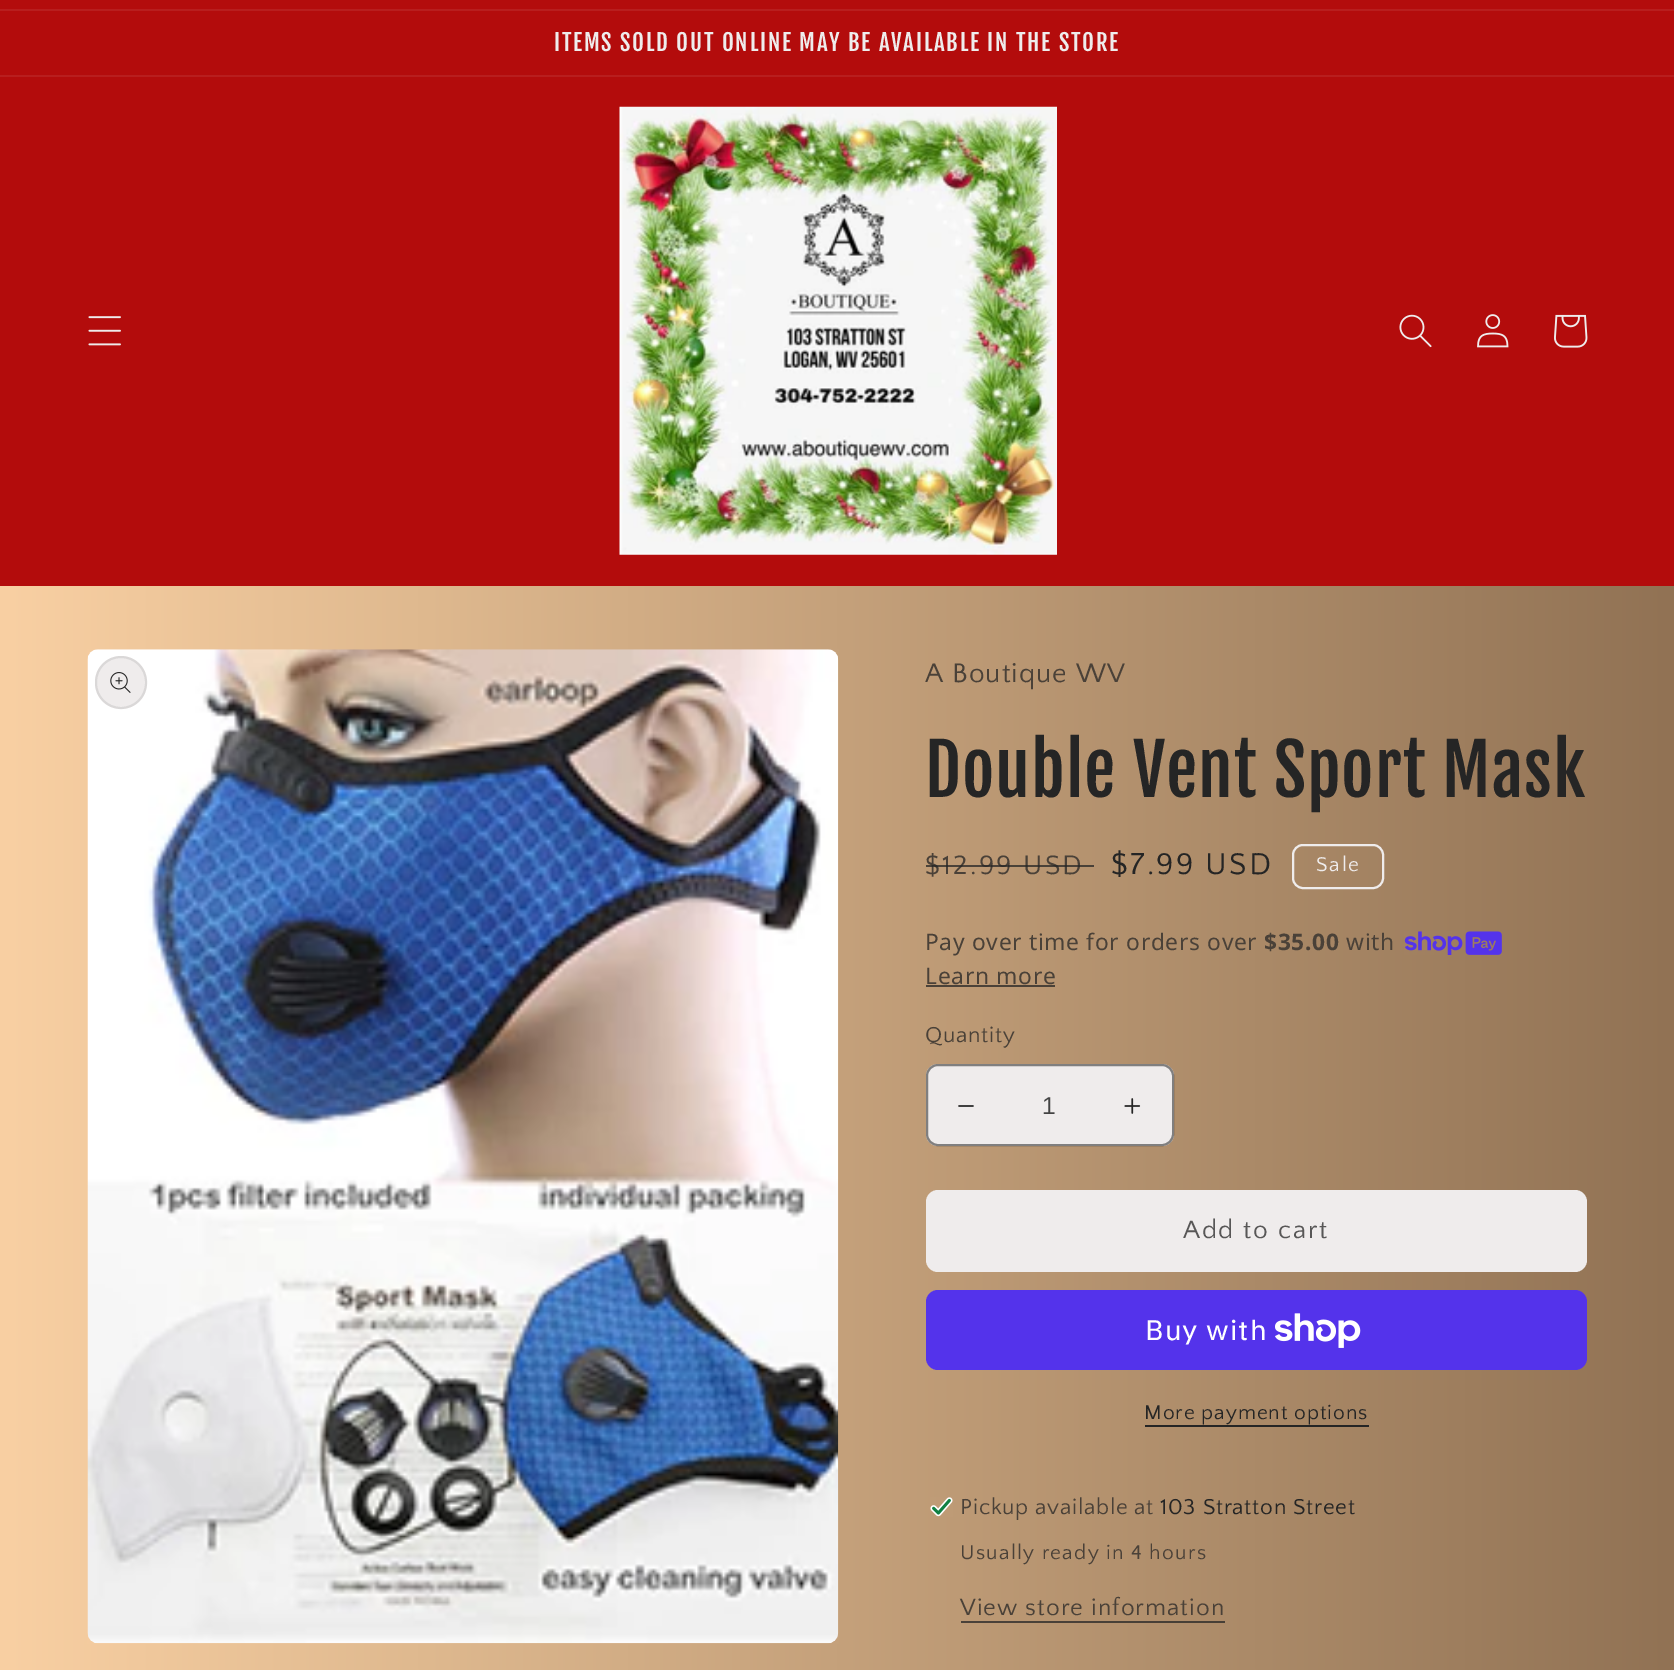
%!PS-Adobe-3.0
%%BoundingBox: 0 0 1674 1670
%%LanguageLevel: 3
%%Pages: 1
%%EndComments
%%BeginProlog
/setink { dup -16 bitshift 255 div exch dup -8 bitshift 255 and 255 div exch 255 and 255 div setrgbcolor } def
/usefont { [ exch dup neg 0 0 3 -1 roll 0 0 ] selectfont } def
/setalpha { dup .setfillconstantalpha .setstrokeconstantalpha } def
/rrect { 5 dict begin { /r /h /w /y /x } { exch def } forall
  x r add y moveto x w add y 2 copy h add r arct x w add y h add x 1 index r arct
  x y h add x y r arct x y 2 copy exch w add exch r arct closepath end } def
/drawimage { 5 dict begin { /h /w /y /x /name } { exch def } forall
  gsave x y translate w h scale
  w h 8 [w 0 0 h 0 0] name (r) file false 3 colorimage grestore end } def
%%EndProlog
%%BeginSetup
<< /PageSize [1674 1670] /PageUsesTransparency true >> setpagedevice
%%EndSetup
%%Page: 1 1
0 .pushpdf14devicefilter
0 1670 translate 1 -1 scale
4 setmiterlimit
16#FFFFFF setink
0 0 1674 1670 rectfill
gsave 0 586 moveto 1674 586 lineto 1674 1670 lineto 0 1670 lineto closepath clip newpath
<< /ShadingType 2 /ColorSpace /DeviceRGB /Coords [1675 836 0 836] /Extend [true true] /Function << /FunctionType 2 /Domain [0 1] /C0 [0.569 0.447 0.329] /C1 [0.976 0.816 0.639] /N 1 >> >> shfill grestore
gsave 926 985 moveto 1055 985 lineto 1055 987 lineto 926 987 lineto closepath clip newpath
<< /ShadingType 2 /ColorSpace /DeviceRGB /Coords [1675 836 0 836] /Extend [true true] /Function << /FunctionType 2 /Domain [0 1] /C0 [0.251 0.22 0.192] /C1 [0.353 0.314 0.271] /N 1 >> >> shfill grestore
gsave 961 1621 moveto 1225 1621 lineto 1225 1623 lineto 961 1623 lineto closepath clip newpath
<< /ShadingType 2 /ColorSpace /DeviceRGB /Coords [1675 836 0 836] /Extend [true true] /Function << /FunctionType 2 /Domain [0 1] /C0 [0.251 0.22 0.192] /C1 [0.353 0.314 0.271] /N 1 >> >> shfill grestore
[
    [0 0 1674 9 16#B30C0C]
    [0 9 1674 2 16#B81E1E]
    [0 11 1674 64 16#B30C0C]
    [0 75 1674 2 16#B81E1E]
] { aload pop setink rectfill } forall
/FjallaOne-Regular 22.75 usefont
16#EFECEC setink
554 51 moveto 1.75 0 (ITEMS SOLD OUT ONLINE MAY BE AVAILABLE IN THE STORE) ashow
16#B30C0C setink
0 77 1674 509 rectfill
(img1.raw) 88 316 33 30 drawimage
(img2.raw) 619 106 438 449 drawimage
(img3.raw) 1399 314 33 34 drawimage
(img4.raw) 1477 314 32 34 drawimage
(img5.raw) 1554 314 34 34 drawimage
(img6.raw) 87 649 752 995 drawimage
16#EFECEC setink
95 656 52 53 26 rrect fill
0.1 setalpha
16#252525 setink
2 setlinewidth
96 657 50 51 25 rrect stroke
1 setalpha
(img7.raw) 110 672 21 21 drawimage
/QuattrocentoSans-Regular 28 usefont
16#4A4138 setink
925 682 moveto 1.05 0 (A Boutique WV) ashow
/FjallaOne-Regular 70 usefont
16#252525 setink
925 797 moveto 1.05 0 (Double Vent Sport Mask) ashow
/QuattrocentoSans-Regular 28 usefont
16#4A4138 setink
925 874 moveto 2.25 0 ($12.99 USD) ashow
0.75 setalpha
16#252525 setink
926 865 168 2 rectfill
/QuattrocentoSans-Regular 31.5 usefont
1 setalpha
1111 874 moveto 2.25 0 ($7.99 USD) ashow
16#EFECEC setink
1293 845 90 43 10 rrect stroke
/QuattrocentoSans-Regular 21 usefont
1316 871 moveto 1.75 0 (Sale) ashow
/NotoSans-Regular 22.75 usefont
16#4A4138 setink
925 950 moveto 0.7 0 (Pay over time for orders over) ashow
/NotoSans-Bold 22.75 usefont
1264 950 moveto 0.7 0 ($35.00) ashow
/NotoSans-Regular 22.75 usefont
1346 950 moveto 0.7 0 (with) ashow
(img8.raw) 1404 931 98 24 drawimage
925 984 moveto 0.7 0 (Learn more) ashow
/QuattrocentoSans-Regular 22.75 usefont
925 1042 moveto 0.7 0 (Quantity) ashow
16#EFECEC setink
926 1064 248 82 12 rrect fill
(img9.raw) 958 1105 16 2 drawimage
(img10.raw) 1124 1098 17 16 drawimage
0.55 setalpha
16#252525 setink
927 1065 246 80 11 rrect stroke
/LiberationSans-Regular 24.5 usefont
1 setalpha
16#434343 setink
1042 1114 moveto (1) show
16#EFECEC setink
926 1190 661 82 12 rrect fill
/QuattrocentoSans-Regular 26.25 usefont
16#585757 setink
1183 1238 moveto 1.75 0 (Add to cart) ashow
16#5433EB setink
926 1290 661 80 12 rrect fill
/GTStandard-Regular 28 usefont
16#FFFFFF setink
1145 1340 moveto 1.05 0 (Buy with) ashow
(img11.raw) 1275 1313 86 35 drawimage
/QuattrocentoSans-Regular 21 usefont
16#252525 setink
1144 1419 moveto 0.9 0 (More payment options) ashow
1145 1425 224 2 rectfill
(img12.raw) 930 1497 23 20 drawimage
/QuattrocentoSans-Regular 22.75 usefont
16#4A4138 setink
960 1514 moveto 0.7 0 (Pickup available at) ashow
16#252525 setink
1160 1514 moveto 0.7 0 (103 Stratton Street) ashow
/QuattrocentoSans-Regular 21 usefont
16#4A4138 setink
960 1559 moveto 1.25 0 (Usually ready in 4 hours) ashow
/QuattrocentoSans-Regular 24.5 usefont
960 1615 moveto 1.05 0 (View store information) ashow
.poppdf14devicefilter showpage
%%EOF
